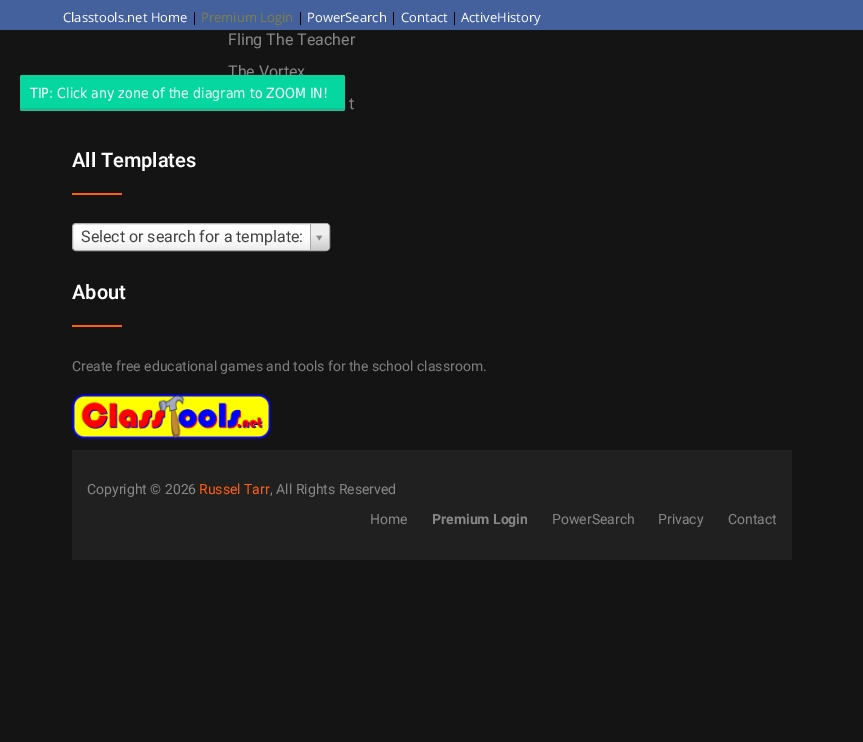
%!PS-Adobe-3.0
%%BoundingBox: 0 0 863 742
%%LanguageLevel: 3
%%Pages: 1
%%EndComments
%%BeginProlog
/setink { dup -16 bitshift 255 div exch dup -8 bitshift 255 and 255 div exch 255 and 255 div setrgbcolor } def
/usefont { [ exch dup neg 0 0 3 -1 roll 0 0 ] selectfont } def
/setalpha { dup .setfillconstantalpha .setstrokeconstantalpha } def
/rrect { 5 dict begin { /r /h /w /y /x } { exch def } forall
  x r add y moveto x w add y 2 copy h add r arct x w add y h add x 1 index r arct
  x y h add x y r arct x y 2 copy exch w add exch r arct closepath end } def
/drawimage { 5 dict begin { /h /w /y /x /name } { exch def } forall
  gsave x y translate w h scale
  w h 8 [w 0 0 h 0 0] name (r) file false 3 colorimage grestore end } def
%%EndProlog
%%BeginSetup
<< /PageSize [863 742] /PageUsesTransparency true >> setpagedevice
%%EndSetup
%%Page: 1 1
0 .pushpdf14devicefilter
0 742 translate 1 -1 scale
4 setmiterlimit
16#151414 setink
0 0 863 742 rectfill
16#44619D setink
0 0 863 30 rectfill
/OpenSans-Regular 13 usefont
16#FFFFFF setink
63 22 moveto (Classtools.net Home) show
16#000000 setink
191 22 moveto (|) show
16#808040 setink
201 22 moveto (Premium Login) show
16#000000 setink
297 22 moveto (|) show
16#FFFFFF setink
307 22 moveto (PowerSearch) show
16#000000 setink
390 22 moveto (|) show
16#FFFFFF setink
401 22 moveto (Contact) show
16#000000 setink
451 22 moveto (|) show
16#FFFFFF setink
461 22 moveto (ActiveHistory) show
/Roboto-Regular 16 usefont
16#878787 setink
[
    [(Fling The Teacher) 228 45]
    [(The Vortex) 228 77]
    [(t) 349 109]
] { aload pop moveto show } forall
/Roboto-SemiBold 20 usefont
16#FFFFFF setink
72 167 moveto (All Templates) show
16#FF5E14 setink
72 193 50 2 rectfill
gsave 73 224 256 26 3 rrect clip newpath
<< /ShadingType 2 /ColorSpace /DeviceRGB /Coords [201 250 201 224] /Extend [true true] /Function << /FunctionType 3 /Domain [0 1] /Functions [<< /FunctionType 2 /Domain [0 1] /C0 [0.933 0.933 0.933] /C1 [1 1 1] /N 1 >> << /FunctionType 2 /Domain [0 1] /C0 [1 1 1] /C1 [1 1 1] /N 1 >>] /Bounds [0.5] /Encode [0 1 0 1] >> >> shfill grestore
16#AAAAAA setink
72.5 223.5 257 27 3.5 rrect stroke
/Roboto-Regular 16 usefont
16#444444 setink
81 242 moveto (Select or search for a template:) show
gsave
73 224 256 26 3 rrect clip newpath
gsave 310 224 moveto 325 224 lineto 327 224 329 226 329 228 curveto 329 246 lineto 329 248 327 250 325 250 curveto 310 250 lineto closepath clip newpath
<< /ShadingType 2 /ColorSpace /DeviceRGB /Coords [320 250 320 224] /Extend [true true] /Function << /FunctionType 3 /Domain [0 1] /Functions [<< /FunctionType 2 /Domain [0 1] /C0 [0.8 0.8 0.8] /C1 [0.933 0.933 0.933] /N 1 >> << /FunctionType 2 /Domain [0 1] /C0 [0.933 0.933 0.933] /C1 [0.933 0.933 0.933] /N 1 >>] /Bounds [0.6] /Encode [0 1 0 1] >> >> shfill grestore
grestore
16#AAAAAA setink
310 224 1 26 rectfill
(img1.raw) 316 235 7 6 drawimage
/Roboto-SemiBold 20 usefont
16#FFFFFF setink
72 299 moveto (About) show
16#FF5E14 setink
72 325 50 2 rectfill
/Roboto-Regular 14 usefont
16#7E7E7E setink
72 371 moveto (Create free educational games and tools for the school classroom.) show
(img2.raw) 72 394 199 45 drawimage
16#202020 setink
72 450 720 110 rectfill
16#878787 setink
87 494 moveto (Copyright © 2026) show
16#FF5E14 setink
199 494 moveto (Russel Tarr) show
16#878787 setink
270 494 moveto (, All Rights Reserved) show
370 524 moveto (Home) show
/Roboto-Bold 14 usefont
432 524 moveto (Premium Login) show
/Roboto-Regular 14 usefont
[
    [(PowerSearch) 552 524]
    [(Privacy) 658 524]
    [(Contact) 728 524]
] { aload pop moveto show } forall
16#06D6A0 setink
20 75 325 36 2 rrect fill
/DejaVuSans-Regular 14 usefont
16#FFFFFF setink
30 98 moveto (TIP: Click any zone of the diagram to ZOOM IN!) show
0.2 setalpha
16#646464 setink
20 108 moveto 345 108 lineto 345 109 lineto 345 110 344 111 343 111 curveto 22 111 lineto 21 111 20 110 20 109 curveto closepath fill
.poppdf14devicefilter showpage
%%EOF
